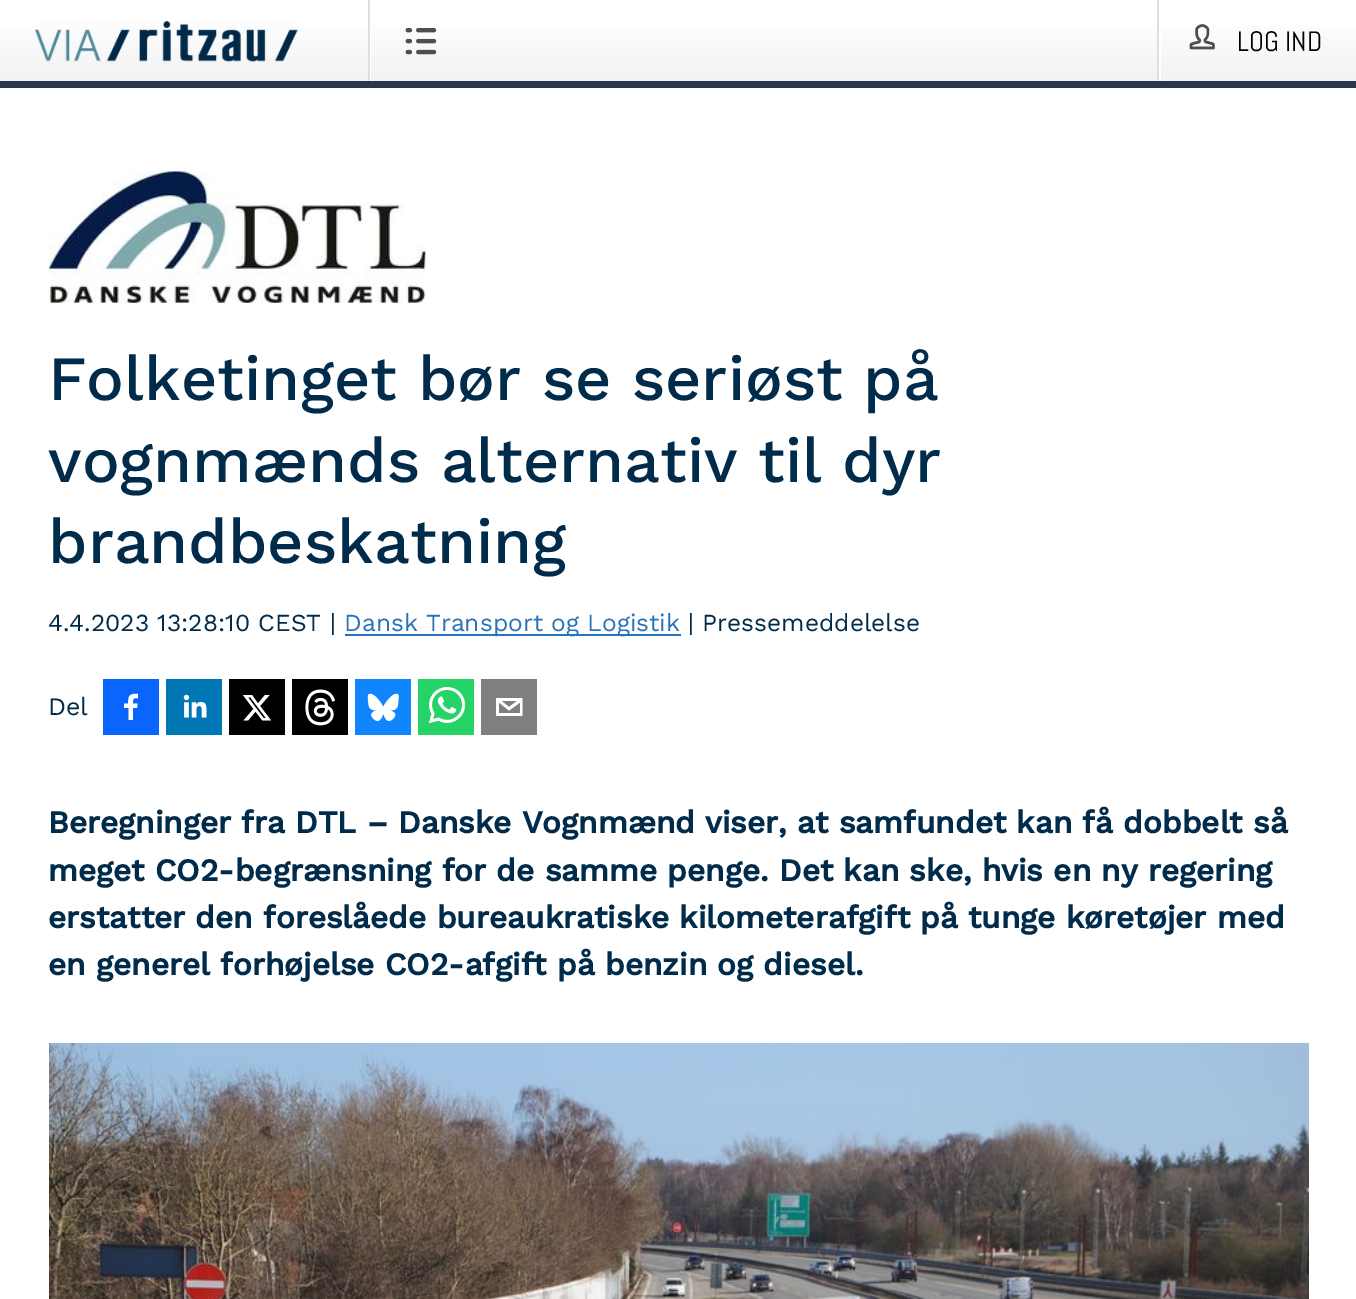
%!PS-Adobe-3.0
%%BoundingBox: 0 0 1356 1299
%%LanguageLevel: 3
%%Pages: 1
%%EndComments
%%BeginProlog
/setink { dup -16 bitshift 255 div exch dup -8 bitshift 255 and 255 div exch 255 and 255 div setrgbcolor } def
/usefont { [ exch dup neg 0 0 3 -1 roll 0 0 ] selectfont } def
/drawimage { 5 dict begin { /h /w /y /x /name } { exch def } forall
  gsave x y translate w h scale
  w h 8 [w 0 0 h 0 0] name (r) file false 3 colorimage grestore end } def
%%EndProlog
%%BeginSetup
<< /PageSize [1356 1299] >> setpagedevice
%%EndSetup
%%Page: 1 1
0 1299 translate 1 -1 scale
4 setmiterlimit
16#FFFFFF setink
0 0 1356 1299 rectfill
gsave 0 26 moveto 1356 26 lineto 1356 81 lineto 0 81 lineto closepath clip newpath
<< /ShadingType 2 /ColorSpace /DeviceRGB /Coords [678 0 678 81] /Extend [true true] /Function << /FunctionType 3 /Domain [0 1] /Functions [<< /FunctionType 2 /Domain [0 1] /C0 [1 1 1] /C1 [1 1 1] /N 1 >> << /FunctionType 2 /Domain [0 1] /C0 [1 1 1] /C1 [0.949 0.949 0.949] /N 1 >>] /Bounds [0.16] /Encode [0 1 0 1] >> >> shfill grestore
16#2A364B setink
0 81 1356 7 rectfill
(img1.raw) 35 21 263 41 drawimage
16#FFFFFF setink
370 26 1 55 rectfill
16#DEDEDE setink
368 0 2 81 rectfill
(img2.raw) 405 28 32 27 drawimage
16#FFFFFF setink
1159 26 2 55 rectfill
16#DEDEDE setink
1157 0 2 81 rectfill
(img3.raw) 1189 24 26 26 drawimage
/Abel-Regular 28 usefont
16#000000 setink
1237 51 moveto (LOG IND) show
(img4.raw) 49 171 377 132 drawimage
/WorkSans-Medium 63 usefont
16#002B4B setink
[
    [(Folketinget bør se seriøst på) 48 400]
    [(vognmænds alternativ til dyr) 48 482]
    [(brandbeskatning) 48 563]
] { aload pop moveto show } forall
/WorkSans-Regular 24.5 usefont
48 631 moveto (4.4.2023 13:28:10 CEST |) show
16#2973BA setink
345 634 336 2 rectfill
344 631 moveto (Dansk Transport og Logistik) show
16#002B4B setink
688 631 moveto (| Pressemeddelelse) show
/WorkSans-Regular 25 usefont
48 715 moveto (Del) show
16#0965FE setink
103 679 56 56 rectfill
16#FFFFFF setink
133 720 moveto 133 708 lineto 137 708 lineto 137.5 703.5 lineto 133 703.5 lineto 133 698.5 132.5 698 138 698 curveto 138 694 lineto 134 693.5 129 694 128.5 698.5 curveto 128 703.5 lineto 124 703.5 lineto 124 708 lineto 128.5 708 lineto 128.5 720 lineto closepath fill
(img5.raw) 166 679 56 56 drawimage
16#000000 setink
229 679 56 56 rectfill
16#FFFFFF setink
265 695 moveto 269.5 695 lineto 260 706 lineto 271 720.5 lineto 262.5 720.5 lineto 255.5 711.5 lineto 248 720.5 lineto 243.5 720.5 lineto 253.5 709 lineto 243 695 lineto 252 695 lineto 258 703.5 lineto closepath 263.5 718 moveto 266 718 lineto 250.5 697.5 lineto 248 697.5 lineto closepath fill
(img6.raw) 292 679 56 56 drawimage
(img7.raw) 355 679 56 56 drawimage
(img8.raw) 418 679 56 56 drawimage
16#7F7F7F setink
481 679 56 56 rectfill
16#FFFFFF setink
496 698 moveto 496 716 lineto 522.5 716 lineto 522.5 698 lineto closepath 517 701 moveto 509 707 lineto 501.5 701 lineto closepath 499 713 moveto 499 702.5 lineto 509 710.5 lineto 520 702.5 lineto 520 713 lineto closepath fill
/WorkSans-Bold 31.5 usefont
16#002B4B setink
[
    [(Beregninger fra DTL – Danske Vognmænd viser, at samfundet kan få dobbelt så) 48 833]
    [(meget CO2-begrænsning for de samme penge. Det kan ske, hvis en ny regering) 48 881]
    [(erstatter den foreslåede bureaukratiske kilometerafgift på tunge køretøjer med) 48 928]
    [(en generel forhøjelse CO2-afgift på benzin og diesel.) 48 975]
] { aload pop moveto show } forall
(img9.raw) 49 1043 1260 256 drawimage
showpage
%%EOF
